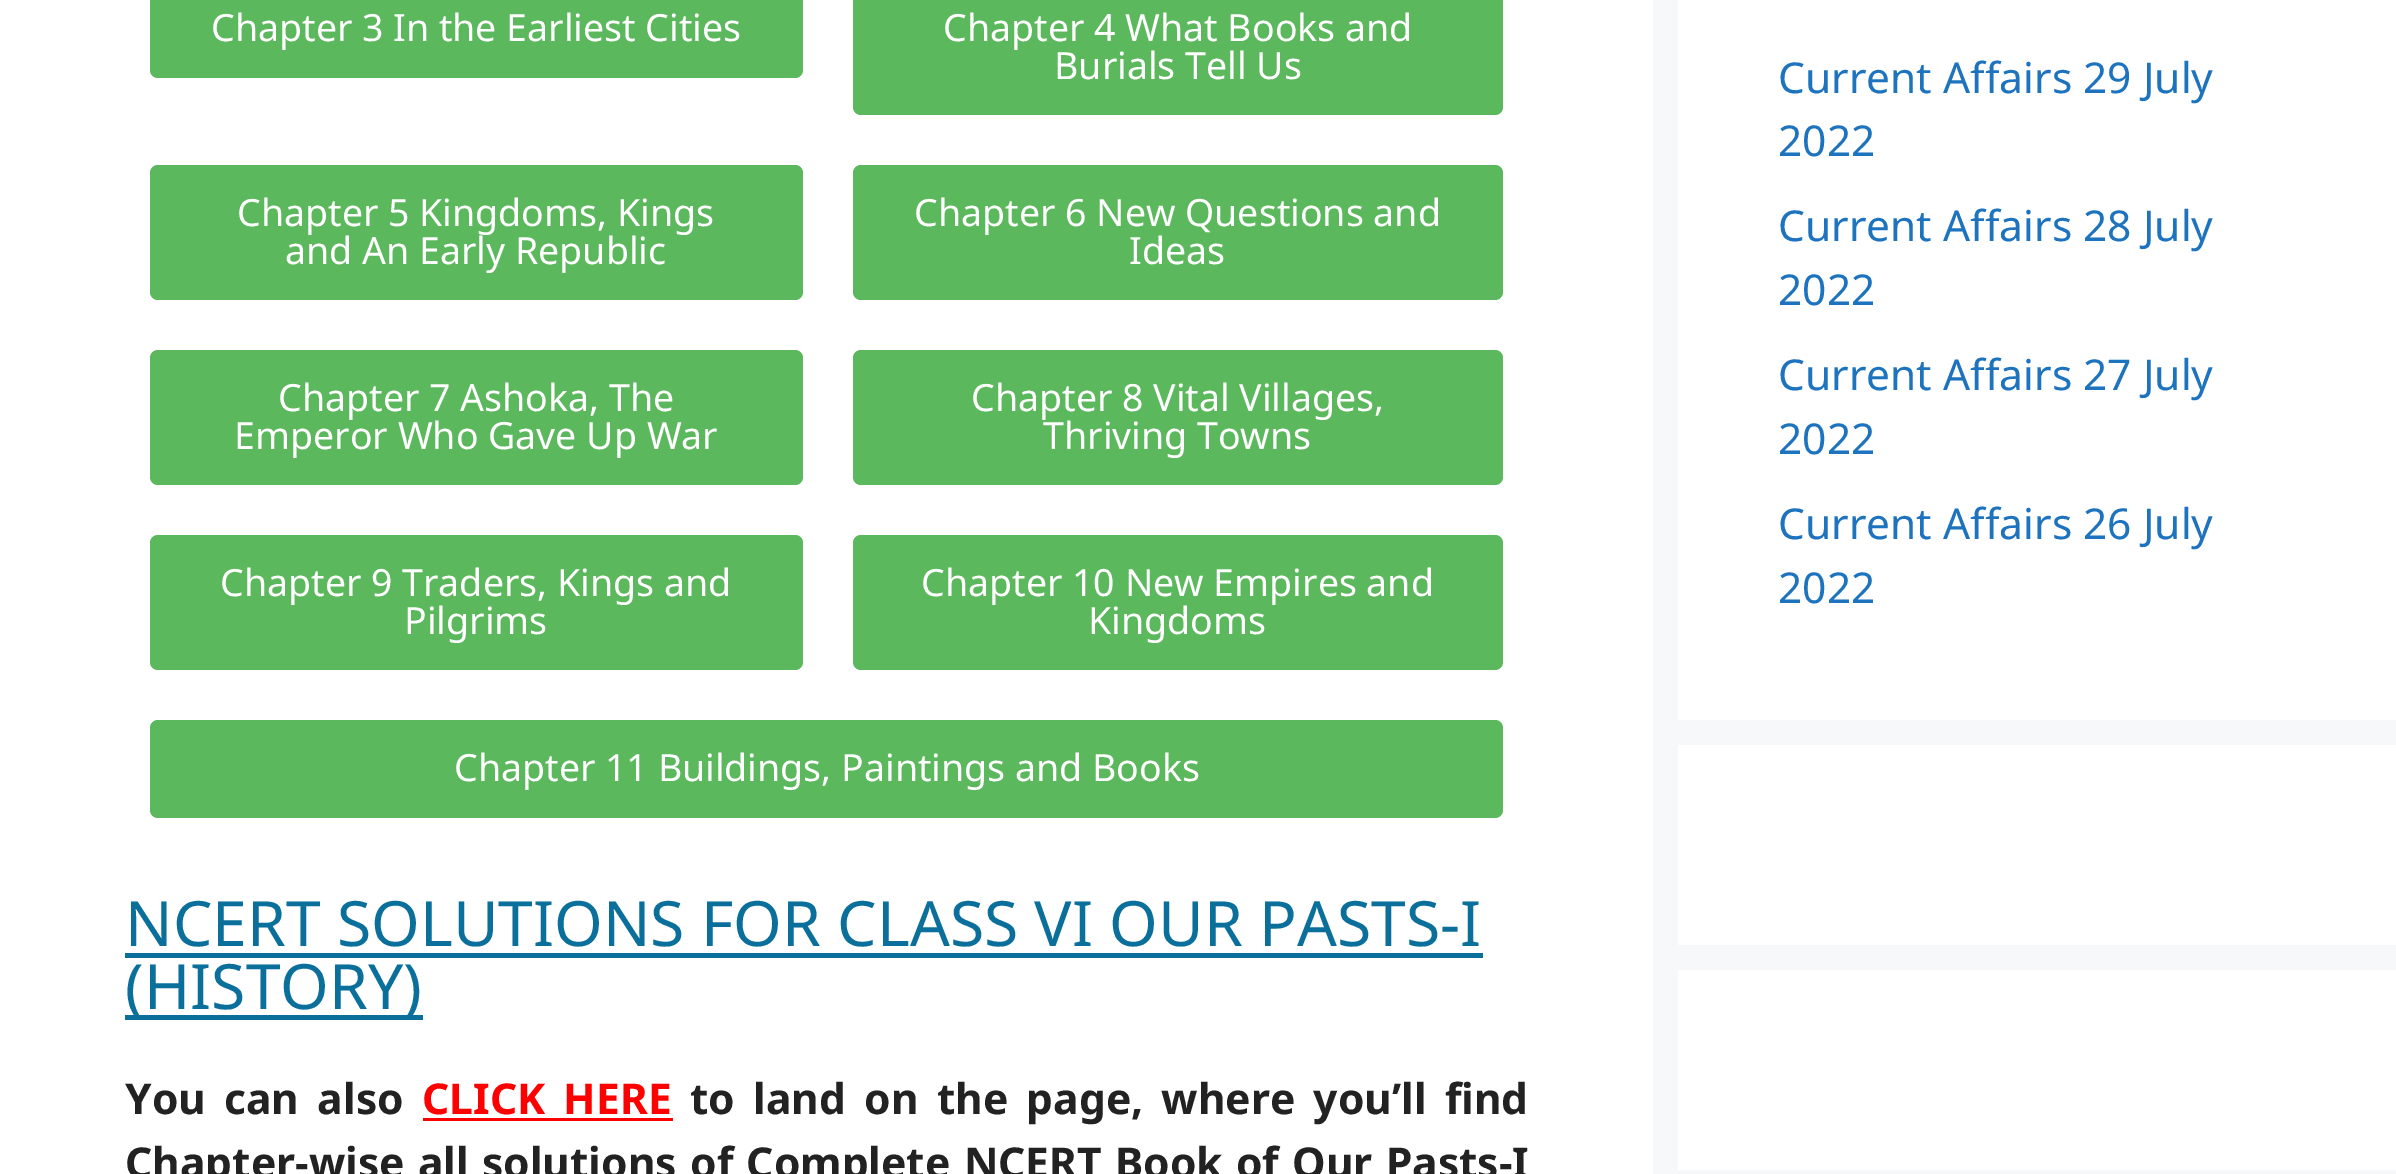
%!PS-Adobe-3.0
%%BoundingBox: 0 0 2396 1174
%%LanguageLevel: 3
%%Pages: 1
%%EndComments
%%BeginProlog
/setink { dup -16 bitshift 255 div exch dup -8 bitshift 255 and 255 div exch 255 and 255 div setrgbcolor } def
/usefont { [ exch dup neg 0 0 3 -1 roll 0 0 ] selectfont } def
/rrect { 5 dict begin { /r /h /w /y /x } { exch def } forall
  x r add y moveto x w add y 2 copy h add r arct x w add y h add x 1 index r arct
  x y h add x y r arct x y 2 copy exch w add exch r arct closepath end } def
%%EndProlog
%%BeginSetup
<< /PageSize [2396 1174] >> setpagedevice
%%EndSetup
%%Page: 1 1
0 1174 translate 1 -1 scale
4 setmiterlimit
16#F7F8F9 setink
0 0 2396 1174 rectfill
16#FFFFFF setink
0 0 1653 1174 rectfill
16#5CB85C setink
150 -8 653 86 8 rrect fill
/NotoSans-Regular 37.5 usefont
16#FFFFFF setink
211 41 moveto (Chapter 3 In the Earliest Cities) show
16#5CB85C setink
853 -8 650 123 8 rrect fill
16#FFFFFF setink
943 41 moveto (Chapter 4 What Books and) show
1054 79 moveto (Burials Tell Us) show
16#5CB85C setink
150 165 653 135 8 rrect fill
16#FFFFFF setink
237 226 moveto (Chapter 5 Kingdoms, Kings) show
285 264 moveto (and An Early Republic) show
16#5CB85C setink
853 165 650 135 8 rrect fill
16#FFFFFF setink
914 226 moveto (Chapter 6 New Questions and) show
1129 264 moveto (Ideas) show
16#5CB85C setink
150 350 653 135 8 rrect fill
16#FFFFFF setink
278 411 moveto (Chapter 7 Ashoka, The) show
234 449 moveto (Emperor Who Gave Up War) show
16#5CB85C setink
853 350 650 135 8 rrect fill
16#FFFFFF setink
971 411 moveto (Chapter 8 Vital Villages,) show
1043 449 moveto (Thriving Towns) show
16#5CB85C setink
150 535 653 135 8 rrect fill
16#FFFFFF setink
220 596 moveto (Chapter 9 Traders, Kings and) show
404 634 moveto (Pilgrims) show
16#5CB85C setink
853 535 650 135 8 rrect fill
16#FFFFFF setink
921 596 moveto (Chapter 10 New Empires and) show
1088 634 moveto (Kingdoms) show
16#5CB85C setink
150 720 1353 98 8 rrect fill
16#FFFFFF setink
454 781 moveto (Chapter 11 Buildings, Paintings and Books) show
/NotoSans-Regular 62.5 usefont
16#0A6F9A setink
125 946 moveto (NCERT SOLUTIONS FOR CLASS VI OUR PASTS-I) show
125 953 1358 5 rectfill
125 1015 298 5 rectfill
125 1009 moveto (\(HISTORY\)) show
/NotoSans-Bold 42.5 usefont
16#222222 setink
125 1114 moveto 7.25 0 32 (You can also) widthshow
16#FF0000 setink
422 1114 moveto 7.25 0 32 (CLICK HERE) widthshow
423 1118 250 3 rectfill
16#222222 setink
690 1114 moveto 7.25 0 32 (to land on the page, where you’ll find) widthshow
125 1178 moveto 2.25 0 32 (Chapter-wise all solutions of Complete NCERT Book of Our Pasts-I) widthshow
16#FFFFFF setink
1678 0 718 720 rectfill
/NotoSans-Regular 42.5 usefont
16#1E73BE setink
[
    [(Current Affairs 29 July) 1778 93]
    [(2022) 1778 156]
    [(Current Affairs 28 July) 1778 241]
    [(2022) 1778 305]
    [(Current Affairs 27 July) 1778 390]
    [(2022) 1778 454]
    [(Current Affairs 26 July) 1778 539]
    [(2022) 1778 603]
] { aload pop moveto show } forall
16#FFFFFF setink
1678 745 718 200 rectfill
1678 970 718 200 rectfill
showpage
%%EOF
